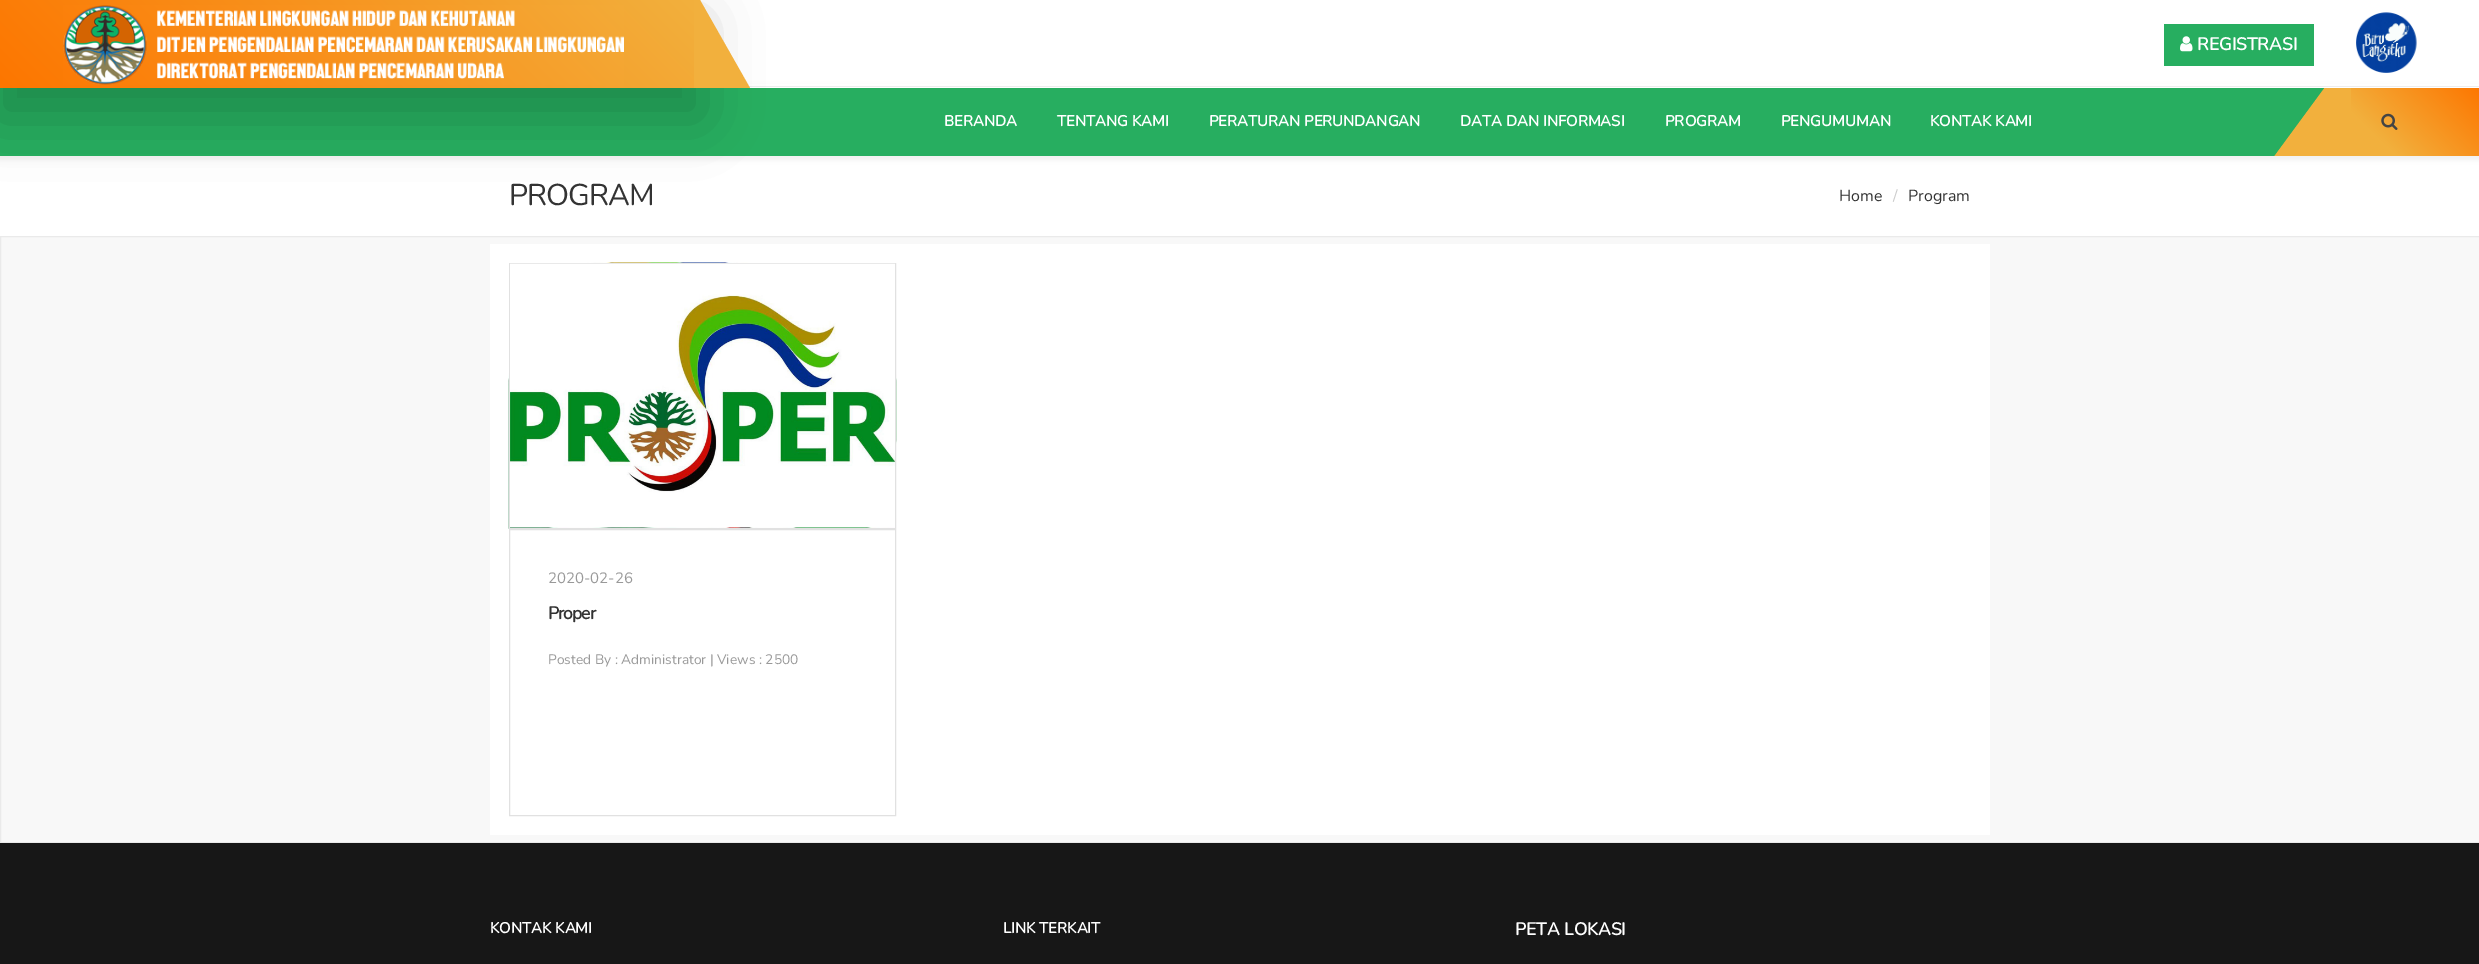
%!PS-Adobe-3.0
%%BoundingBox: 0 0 2479 964
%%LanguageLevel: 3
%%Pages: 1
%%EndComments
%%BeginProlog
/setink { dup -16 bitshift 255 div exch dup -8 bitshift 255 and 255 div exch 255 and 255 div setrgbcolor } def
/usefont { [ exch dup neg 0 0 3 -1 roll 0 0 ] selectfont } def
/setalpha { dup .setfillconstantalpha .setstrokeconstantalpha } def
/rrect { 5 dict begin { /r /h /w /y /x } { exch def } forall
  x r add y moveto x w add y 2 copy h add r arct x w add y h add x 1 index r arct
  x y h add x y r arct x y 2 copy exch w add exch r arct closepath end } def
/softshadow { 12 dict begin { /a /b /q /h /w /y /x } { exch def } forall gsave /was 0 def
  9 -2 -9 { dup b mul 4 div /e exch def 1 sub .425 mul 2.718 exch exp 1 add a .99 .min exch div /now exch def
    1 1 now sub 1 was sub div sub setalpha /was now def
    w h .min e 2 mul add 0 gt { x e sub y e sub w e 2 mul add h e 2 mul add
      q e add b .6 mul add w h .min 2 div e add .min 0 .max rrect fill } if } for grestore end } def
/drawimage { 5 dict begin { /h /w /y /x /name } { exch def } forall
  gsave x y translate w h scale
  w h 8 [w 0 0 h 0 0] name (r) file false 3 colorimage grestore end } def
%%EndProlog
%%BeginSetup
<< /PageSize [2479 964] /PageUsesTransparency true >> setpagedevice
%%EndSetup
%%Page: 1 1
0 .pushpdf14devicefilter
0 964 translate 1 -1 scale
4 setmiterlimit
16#FFFFFF setink
0 0 2479 964 rectfill
16#000000 setink
-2 86 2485 74 0 2.5 0.06 softshadow
[
    [700 84 1779 4 16#FFFFFF]
    [748 86 1731 1 16#EDEDED]
    [0 88 2324 68 16#27AE60]
] { aload pop setink rectfill } forall
16#000000 setink
-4 19 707 100 0 28 0.2 softshadow
gsave 0 0 moveto 694 0 lineto 694 88 lineto 0 88 lineto closepath clip newpath
<< /ShadingType 2 /ColorSpace /DeviceRGB /Coords [152 239 542 -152] /Extend [true true] /Function << /FunctionType 2 /Domain [0 1] /C0 [0.992 0.463 0] /C1 [0.949 0.69 0.239] /N 1 >> >> shfill grestore
(img1.raw) 63 5 561 80 drawimage
16#F2B03D setink
750 88 moveto 694 88 lineto 694 0 lineto 700 0 lineto closepath fill
16#27AE60 setink
2164 24 150 42 rectfill
(img2.raw) 2180 36 13 16 drawimage
/Nunito-Bold 17.5 usefont
16#FFFFFF setink
2197 50 moveto (REGISTRASI) show
(img3.raw) 2356 12 61 61 drawimage
/Nunito-Bold 15 usefont
[
    [(BERANDA) 944 126]
    [(TENTANG KAMI) 1057 126]
    [(PERATURAN PERUNDANGAN) 1209 126]
    [(DATA DAN INFORMASI) 1460 126]
    [(PROGRAM) 1665 126]
    [(PENGUMUMAN) 1781 126]
    [(KONTAK KAMI) 1930 126]
] { aload pop moveto show } forall
16#F2B03D setink
2351 156 moveto 2274 156 lineto 2324 88 lineto 2351 88 lineto closepath fill
16#27AE60 setink
2274 156 moveto 2274 88 lineto 2324 88 lineto closepath fill
gsave 2351 88 moveto 2479 88 lineto 2479 156 lineto 2351 156 lineto closepath clip newpath
<< /ShadingType 2 /ColorSpace /DeviceRGB /Coords [2363 173 2464 71] /Extend [true true] /Function << /FunctionType 3 /Domain [0 1] /Functions [<< /FunctionType 2 /Domain [0 1] /C0 [0.949 0.69 0.239] /C1 [0.949 0.69 0.239] /N 1 >> << /FunctionType 2 /Domain [0 1] /C0 [0.949 0.69 0.239] /C1 [0.992 0.463 0] /N 1 >>] /Bounds [0.25] /Encode [0 1 0 1] >> >> shfill grestore
(img4.raw) 2381 113 17 17 drawimage
/Nunito-ExtraLight 30 usefont
16#333333 setink
509 205 moveto -1 0 (PROGRAM) ashow
/Nunito-ExtraLight 16 usefont
1839 201 moveto (Home) show
16#CCCCCC setink
1893 201 moveto (/) show
16#333333 setink
1908 201 moveto (Program) show
16#F8F8F8 setink
0.5 236.5 moveto 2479.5 236.5 lineto 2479.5 842.5 lineto 0.5 842.5 lineto closepath gsave fill grestore
16#EAEAEA setink
stroke
16#FFFFFF setink
490 244 1500 591 rectfill
(img5.raw) 508 262 389 267 drawimage
16#E1E1E1 setink
509.5 263.5 386 265 rectstroke
(img6.raw) 510 263 385 265 drawimage
509.5 529.5 386 286 rectstroke
/Nunito-ExtraLight 15 usefont
16#999999 setink
548 583 moveto (2020-02-26) show
/Nunito-Bold 17.5 usefont
16#333333 setink
548 619 moveto -1 0 (Proper) ashow
/Nunito-ExtraLight 13.75 usefont
16#999999 setink
548 664 moveto (Posted By : Administrator | Views : 2500) show
16#171717 setink
0 843 2479 121 rectfill
/Nunito-Bold 15 usefont
16#FFFFFF setink
490 933 moveto (KONTAK KAMI) show
1003 933 moveto (LINK TERKAIT) show
/Nunito-Bold 17.5 usefont
1515 935 moveto (PETA LOKASI) show
.poppdf14devicefilter showpage
%%EOF
